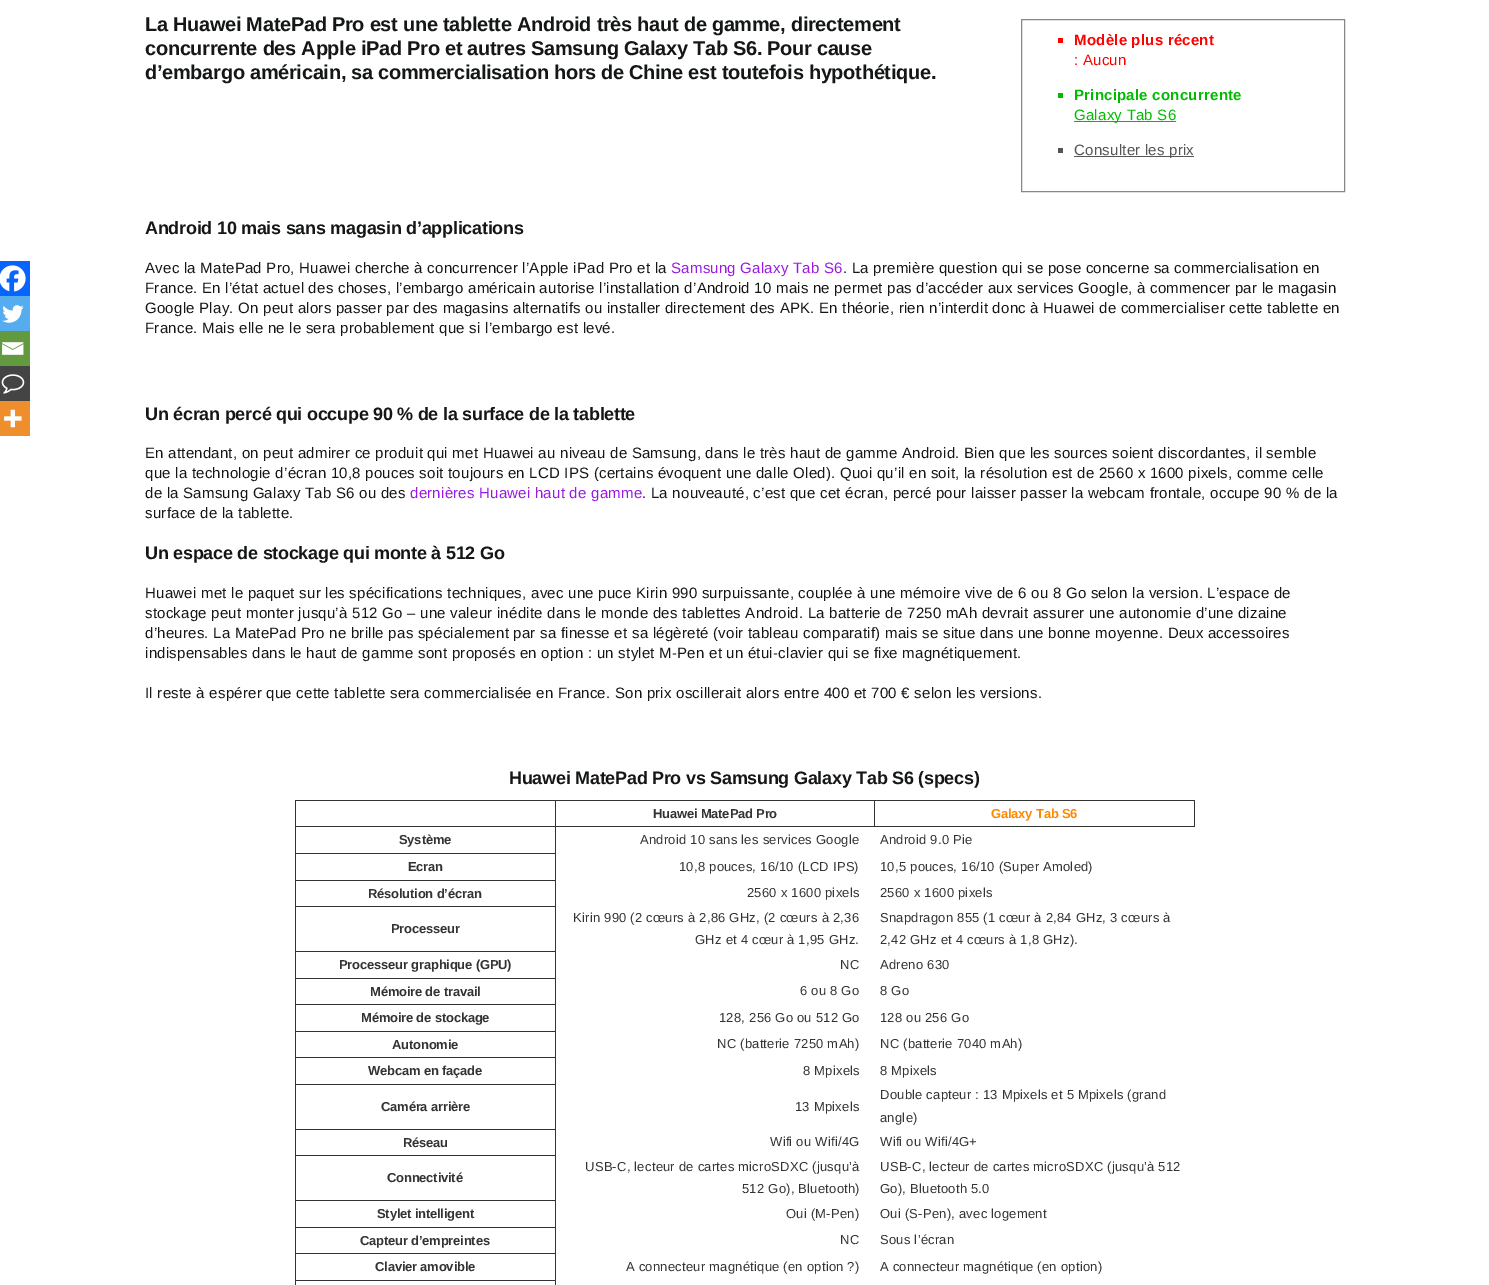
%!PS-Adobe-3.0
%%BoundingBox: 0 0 1489 1285
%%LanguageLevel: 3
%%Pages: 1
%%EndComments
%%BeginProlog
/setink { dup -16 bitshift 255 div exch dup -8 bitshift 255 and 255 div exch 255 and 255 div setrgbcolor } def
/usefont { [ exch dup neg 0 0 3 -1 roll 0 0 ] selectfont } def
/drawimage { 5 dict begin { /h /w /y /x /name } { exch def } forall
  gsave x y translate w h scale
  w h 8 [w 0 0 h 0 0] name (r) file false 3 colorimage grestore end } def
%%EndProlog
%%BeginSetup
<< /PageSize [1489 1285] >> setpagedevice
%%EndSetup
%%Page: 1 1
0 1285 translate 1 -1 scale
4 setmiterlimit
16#FFFFFF setink
0 0 1489 1285 rectfill
/LiberationSans-Bold 20 usefont
16#141617 setink
145 31 moveto -0.3 0 (La Huawei MatePad Pro est une tablette Android très haut de gamme, directement) ashow
145 55 moveto -0.3 0 (concurrente des Apple iPad Pro et autres Samsung Galaxy Tab S6. Pour cause) ashow
145 79 moveto -0.3 0 (d’embargo américain, sa commercialisation hors de Chine est toutefois hypothétique.) ashow
16#888888 setink
1021.5 19.5 323 172 rectstroke
16#FF0000 setink
1058 38 5 5 rectfill
/LiberationSans-Bold 15 usefont
1074 45 moveto 0.24 0 (Modèle plus récent) ashow
/LiberationSans-Regular 15 usefont
1074 65 moveto 0.24 0 (: Aucun) ashow
16#00BB00 setink
1058 93 5 5 rectfill
/LiberationSans-Bold 15 usefont
1074 100 moveto 0.24 0 (Principale concurrente) ashow
1074 121 102 1 rectfill
/LiberationSans-Regular 15 usefont
1074 120 moveto 0.24 0 (Galaxy Tab S6) ashow
16#555555 setink
1058 148 5 5 rectfill
1074 156 120 1 rectfill
1074 155 moveto 0.24 0 (Consulter les prix) ashow
/LiberationSans-Bold 18 usefont
16#141617 setink
145 234 moveto -0.27 0 (Android 10 mais sans magasin d’applications) ashow
16#0765FE setink
0 261 30 35 rectfill
(img1.raw) 0 265 26 27 drawimage
16#55ACEE setink
0 296 30 35 rectfill
(img2.raw) 2 305 22 18 drawimage
16#649A3F setink
0 331 30 35 rectfill
(img3.raw) 2 342 22 13 drawimage
16#444444 setink
0 366 30 35 rectfill
(img4.raw) 1 374 24 20 drawimage
16#EE8E2D setink
0 401 30 35 rectfill
(img5.raw) 4 409 18 19 drawimage
/LiberationSans-Regular 15 usefont
16#141617 setink
145 273 moveto 0.24 0 (Avec la MatePad Pro, Huawei cherche à concurrencer l’Apple iPad Pro et la) ashow
16#991BE2 setink
671 273 moveto 0.24 0 (Samsung Galaxy Tab S6) ashow
16#141617 setink
843 273 moveto 0.24 0 (. La première question qui se pose concerne sa commercialisation en) ashow
145 293 moveto 0.24 0 (France. En l’état actuel des choses, l’embargo américain autorise l’installation d’Android 10 mais ne permet pas d’accéder aux services Google, à commencer par le magasin) ashow
145 313 moveto 0.24 0 (Google Play. On peut alors passer par des magasins alternatifs ou installer directement des APK. En théorie, rien n’interdit donc à Huawei de commercialiser cette tablette en) ashow
145 333 moveto 0.24 0 (France. Mais elle ne le sera probablement que si l’embargo est levé.) ashow
/LiberationSans-Bold 18 usefont
145 420 moveto -0.27 0 (Un écran percé qui occupe 90 % de la surface de la tablette) ashow
/LiberationSans-Regular 15 usefont
145 458 moveto 0.24 0 (En attendant, on peut admirer ce produit qui met Huawei au niveau de Samsung, dans le très haut de gamme Android. Bien que les sources soient discordantes, il semble) ashow
145 478 moveto 0.24 0 (que la technologie d’écran 10,8 pouces soit toujours en LCD IPS \(certains évoquent une dalle Oled\). Quoi qu’il en soit, la résolution est de 2560 x 1600 pixels, comme celle) ashow
145 498 moveto 0.24 0 (de la Samsung Galaxy Tab S6 ou des) ashow
16#991BE2 setink
410 498 moveto 0.24 0 (dernières Huawei haut de gamme) ashow
16#141617 setink
642 498 moveto 0.24 0 (. La nouveauté, c’est que cet écran, percé pour laisser passer la webcam frontale, occupe 90 % de la) ashow
145 518 moveto 0.24 0 (surface de la tablette.) ashow
/LiberationSans-Bold 18 usefont
145 559 moveto -0.27 0 (Un espace de stockage qui monte à 512 Go) ashow
/LiberationSans-Regular 15 usefont
145 598 moveto 0.24 0 (Huawei met le paquet sur les spécifications techniques, avec une puce Kirin 990 surpuissante, couplée à une mémoire vive de 6 ou 8 Go selon la version. L’espace de) ashow
145 618 moveto 0.24 0 (stockage peut monter jusqu’à 512 Go – une valeur inédite dans le monde des tablettes Android. La batterie de 7250 mAh devrait assurer une autonomie d’une dizaine) ashow
145 638 moveto 0.24 0 (d’heures. La MatePad Pro ne brille pas spécialement par sa finesse et sa légèreté \(voir tableau comparatif\) mais se situe dans une bonne moyenne. Deux accessoires) ashow
145 658 moveto 0.24 0 (indispensables dans le haut de gamme sont proposés en option : un stylet M-Pen et un étui-clavier qui se fixe magnétiquement.) ashow
145 698 moveto 0.24 0 (Il reste à espérer que cette tablette sera commercialisée en France. Son prix oscillerait alors entre 400 et 700 € selon les versions.) ashow
/LiberationSans-Bold 18 usefont
509 784 moveto -0.27 0 (Huawei MatePad Pro vs Samsung Galaxy Tab S6 \(specs\)) ashow
[
    [874 800 321 1 16#333333]
    [1194 800 1 27 16#333333]
    [874 826 321 1 16#333333]
    [874 800 1 27 16#333333]
    [555 800 320 1 16#333333]
    [295 826 261 1 16#333333]
    [295 853 261 1 16#333333]
    [295 880 261 1 16#333333]
    [295 906 261 1 16#333333]
    [295 951 261 1 16#333333]
    [295 978 261 1 16#333333]
    [295 1004 261 1 16#333333]
    [295 1031 261 1 16#333333]
    [295 1057 261 1 16#333333]
    [295 1084 261 1 16#333333]
    [295 1129 261 1 16#333333]
    [295 1155 261 1 16#333333]
    [295 1200 261 1 16#333333]
    [295 1227 261 1 16#333333]
    [295 1253 261 1 16#333333]
    [295 1280 261 1 16#333333]
    [555 1280 1 5 16#333333]
    [555 1253 1 28 16#333333]
    [555 1227 1 27 16#333333]
    [555 1200 1 28 16#333333]
    [555 1155 1 46 16#333333]
    [555 1129 1 27 16#333333]
    [555 1084 1 46 16#333333]
    [555 1057 1 28 16#333333]
    [555 1031 1 27 16#333333]
    [555 1004 1 28 16#333333]
    [555 978 1 27 16#333333]
    [555 951 1 28 16#333333]
    [555 906 1 46 16#333333]
    [555 880 1 27 16#333333]
    [555 853 1 28 16#333333]
    [555 826 1 28 16#333333]
    [555 826 320 1 16#333333]
    [555 800 1 27 16#333333]
    [295 800 261 1 16#333333]
    [295 1280 1 5 16#333333]
    [295 1253 1 28 16#333333]
    [295 1227 1 27 16#333333]
    [295 1200 1 28 16#333333]
    [295 1155 1 46 16#333333]
    [295 1129 1 27 16#333333]
    [295 1084 1 46 16#333333]
    [295 1057 1 28 16#333333]
    [295 1031 1 27 16#333333]
    [295 1004 1 28 16#333333]
    [295 978 1 27 16#333333]
    [295 951 1 28 16#333333]
    [295 906 1 46 16#333333]
    [295 880 1 27 16#333333]
    [295 853 1 28 16#333333]
    [295 826 1 28 16#333333]
    [295 800 1 27 16#333333]
] { aload pop setink rectfill } forall
/LiberationSans-Bold 13 usefont
653 818 moveto -0.2 0 (Huawei MatePad Pro) ashow
16#FF8800 setink
991 818 moveto -0.2 0 (Galaxy Tab S6) ashow
16#333333 setink
399 844 moveto -0.2 0 (Système) ashow
/LiberationSans-Regular 13 usefont
640 844 moveto 0.24 0 (Android 10 sans les services Google) ashow
880 844 moveto 0.24 0 (Android 9.0 Pie) ashow
/LiberationSans-Bold 13 usefont
408 871 moveto -0.2 0 (Ecran) ashow
/LiberationSans-Regular 13 usefont
679 871 moveto 0.24 0 (10,8 pouces, 16/10 \(LCD IPS\)) ashow
880 871 moveto 0.24 0 (10,5 pouces, 16/10 \(Super Amoled\)) ashow
/LiberationSans-Bold 13 usefont
368 898 moveto -0.2 0 (Résolution d’écran) ashow
/LiberationSans-Regular 13 usefont
747 897 moveto 0.24 0 (2560 x 1600 pixels) ashow
880 897 moveto 0.24 0 (2560 x 1600 pixels) ashow
/LiberationSans-Bold 13 usefont
391 933 moveto -0.2 0 (Processeur) ashow
/LiberationSans-Regular 13 usefont
573 922 moveto 0.24 0 (Kirin 990 \(2 cœurs à 2,86 GHz, \(2 cœurs à 2,36) ashow
695 944 moveto 0.24 0 (GHz et 4 cœur à 1,95 GHz.) ashow
880 922 moveto 0.24 0 (Snapdragon 855 \(1 cœur à 2,84 GHz, 3 cœurs à) ashow
880 944 moveto 0.24 0 (2,42 GHz et 4 cœurs à 1,8 GHz\).) ashow
/LiberationSans-Bold 13 usefont
339 969 moveto -0.2 0 (Processeur graphique \(GPU\)) ashow
/LiberationSans-Regular 13 usefont
840 969 moveto 0.24 0 (NC) ashow
880 969 moveto 0.24 0 (Adreno 630) ashow
/LiberationSans-Bold 13 usefont
370 996 moveto -0.2 0 (Mémoire de travail) ashow
/LiberationSans-Regular 13 usefont
800 995 moveto 0.24 0 (6 ou 8 Go) ashow
880 995 moveto 0.24 0 (8 Go) ashow
/LiberationSans-Bold 13 usefont
361 1022 moveto -0.2 0 (Mémoire de stockage) ashow
/LiberationSans-Regular 13 usefont
719 1022 moveto 0.24 0 (128, 256 Go ou 512 Go) ashow
880 1022 moveto 0.24 0 (128 ou 256 Go) ashow
/LiberationSans-Bold 13 usefont
392 1049 moveto -0.2 0 (Autonomie) ashow
/LiberationSans-Regular 13 usefont
717 1048 moveto 0.24 0 (NC \(batterie 7250 mAh\)) ashow
880 1048 moveto 0.24 0 (NC \(batterie 7040 mAh\)) ashow
/LiberationSans-Bold 13 usefont
368 1075 moveto -0.2 0 (Webcam en façade) ashow
/LiberationSans-Regular 13 usefont
803 1075 moveto 0.24 0 (8 Mpixels) ashow
880 1075 moveto 0.24 0 (8 Mpixels) ashow
/LiberationSans-Bold 13 usefont
381 1111 moveto -0.2 0 (Caméra arrière) ashow
/LiberationSans-Regular 13 usefont
795 1111 moveto 0.24 0 (13 Mpixels) ashow
880 1099 moveto 0.24 0 (Double capteur : 13 Mpixels et 5 Mpixels \(grand) ashow
880 1122 moveto 0.24 0 (angle\)) ashow
/LiberationSans-Bold 13 usefont
403 1147 moveto -0.2 0 (Réseau) ashow
/LiberationSans-Regular 13 usefont
770 1146 moveto 0.24 0 (Wifi ou Wifi/4G) ashow
880 1146 moveto 0.24 0 (Wifi ou Wifi/4G+) ashow
/LiberationSans-Bold 13 usefont
387 1182 moveto -0.2 0 (Connectivité) ashow
/LiberationSans-Regular 13 usefont
585 1171 moveto 0.24 0 (USB-C, lecteur de cartes microSDXC \(jusqu’à) ashow
742 1193 moveto 0.24 0 (512 Go\), Bluetooth\)) ashow
880 1171 moveto 0.24 0 (USB-C, lecteur de cartes microSDXC \(jusqu’à 512) ashow
880 1193 moveto 0.24 0 (Go\), Bluetooth 5.0) ashow
/LiberationSans-Bold 13 usefont
377 1218 moveto -0.2 0 (Stylet intelligent) ashow
/LiberationSans-Regular 13 usefont
786 1218 moveto 0.24 0 (Oui \(M-Pen\)) ashow
880 1218 moveto 0.24 0 (Oui \(S-Pen\), avec logement) ashow
/LiberationSans-Bold 13 usefont
360 1245 moveto -0.2 0 (Capteur d’empreintes) ashow
/LiberationSans-Regular 13 usefont
840 1244 moveto 0.24 0 (NC) ashow
880 1244 moveto 0.24 0 (Sous l’écran) ashow
/LiberationSans-Bold 13 usefont
375 1271 moveto -0.2 0 (Clavier amovible) ashow
/LiberationSans-Regular 13 usefont
626 1271 moveto 0.24 0 (A connecteur magnétique \(en option ?\)) ashow
880 1271 moveto 0.24 0 (A connecteur magnétique \(en option\)) ashow
showpage
%%EOF
